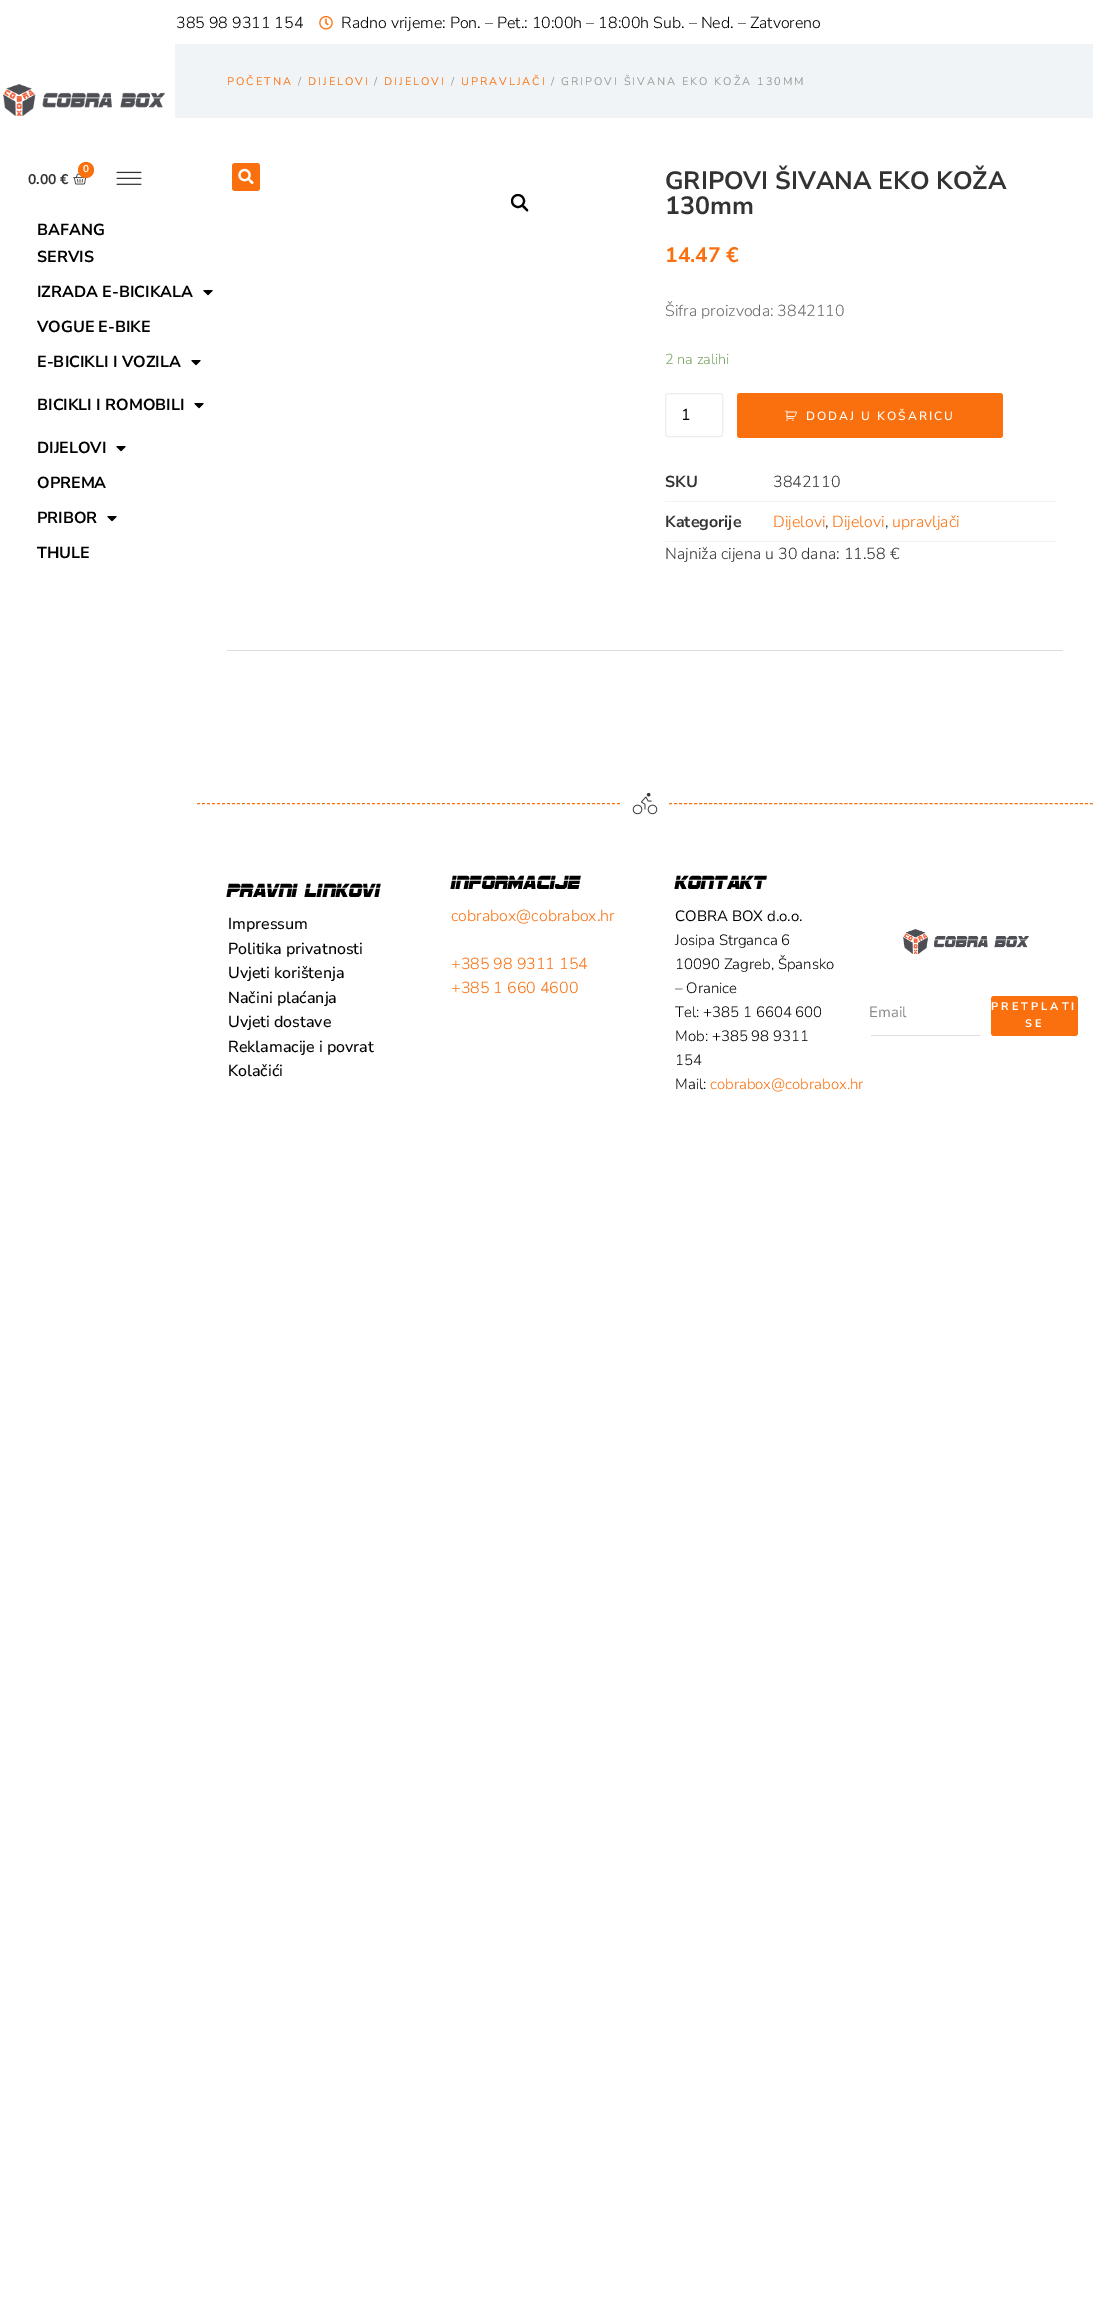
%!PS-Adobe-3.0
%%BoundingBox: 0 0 1093 2317
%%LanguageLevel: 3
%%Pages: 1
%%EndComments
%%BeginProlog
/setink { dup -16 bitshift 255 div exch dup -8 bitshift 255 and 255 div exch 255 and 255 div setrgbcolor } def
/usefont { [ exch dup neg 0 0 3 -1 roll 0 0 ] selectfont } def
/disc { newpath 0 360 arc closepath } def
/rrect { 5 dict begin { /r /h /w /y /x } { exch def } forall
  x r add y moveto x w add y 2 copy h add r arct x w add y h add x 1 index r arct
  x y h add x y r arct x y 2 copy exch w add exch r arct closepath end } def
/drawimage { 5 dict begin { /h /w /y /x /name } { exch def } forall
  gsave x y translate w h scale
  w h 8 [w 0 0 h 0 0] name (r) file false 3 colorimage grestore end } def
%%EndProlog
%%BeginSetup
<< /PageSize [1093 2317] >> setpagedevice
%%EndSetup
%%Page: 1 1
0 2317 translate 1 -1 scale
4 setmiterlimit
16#FFFFFF setink
0 0 1093 2317 rectfill
/NunitoSans-Light 16 usefont
16#000000 setink
176 28 moveto (385 98 9311 154) show
(img1.raw) 319 16 14 14 drawimage
341 28 moveto (Radno vrijeme: Pon. – Pet.: 10:00h – 18:00h Sub. – Ned. – Zatvoreno) show
(img2.raw) 3 84 162 32 drawimage
(img3.raw) 73 173 14 12 drawimage
16#FB700E setink
86 170 8 disc fill
/NunitoSans-Bold 10 usefont
16#FFFFFF setink
83 172 moveto (0) show
/NunitoSans-Bold 14 usefont
16#333333 setink
28 184 moveto (0.00 €) show
(img4.raw) 116 171 26 14 drawimage
16#FB700E setink
232 163 28 28 3 rrect fill
(img5.raw) 238 168 16 17 drawimage
/NunitoSans-Bold 16 usefont
16#000000 setink
[
    [(BAFANG) 37 235]
    [(SERVIS) 37 262]
    [(IZRADA E-BICIKALA) 37 297]
] { aload pop moveto show } forall
(img6.raw) 203 290 10 6 drawimage
37 332 moveto (VOGUE E-BIKE) show
37 367 moveto (E-BICIKLI I VOZILA) show
(img6.raw) 191 360 10 6 drawimage
37 410 moveto (BICIKLI I ROMOBILI) show
(img6.raw) 194 403 10 6 drawimage
37 453 moveto (DIJELOVI) show
(img6.raw) 116 446 10 6 drawimage
37 488 moveto (OPREMA) show
37 523 moveto (PRIBOR) show
(img6.raw) 107 516 10 6 drawimage
37 558 moveto (THULE) show
16#F0F4F6 setink
175 44 918 74 rectfill
/NunitoSans-Regular 11 usefont
16#FB700E setink
227 85 moveto 2 0 (POČETNA) ashow
16#999999 setink
298 85 moveto 2 0 (/) ashow
16#FB700E setink
308 85 moveto 2 0 (DIJELOVI) ashow
16#999999 setink
374 85 moveto 2 0 (/) ashow
16#FB700E setink
384 85 moveto 2 0 (DIJELOVI) ashow
16#999999 setink
451 85 moveto 2 0 (/) ashow
16#FB700E setink
461 85 moveto 2 0 (UPRAVLJAČI) ashow
16#999999 setink
551 85 moveto 2 0 (/ GRIPOVI ŠIVANA EKO KOŽA 130MM) ashow
16#000000 setink
2 setlinewidth
518 201 6 disc stroke
522.5 205.5 moveto 523.5 204.5 525.5 207 526 207.5 curveto 526.5 208.5 529 210 528 211 curveto 527 212.5 525 209.5 524.5 209 curveto 524 208.5 521 206.5 522.5 205.5 curveto closepath fill
/NunitoSans-Bold 25 usefont
16#333333 setink
665 189 moveto (GRIPOVI ŠIVANA EKO KOŽA) show
665 214 moveto (130mm) show
/NunitoSans-Bold 21 usefont
16#FB700E setink
665 262 moveto (14.47 €) show
/NunitoSans-Light 16 usefont
16#6B6B6B setink
665 316 moveto (Šifra proizvoda: 3842110) show
/NunitoSans-Light 14.5 usefont
16#77A464 setink
665 364 moveto (2 na zalihi) show
16#EDEDED setink
1 setlinewidth
665.5 393.5 57 43 2.5 rrect stroke
/NunitoSans-Regular 16 usefont
16#000000 setink
681 420 moveto (1) show
16#FB700E setink
737 393 266 45 3 rrect fill
(img7.raw) 785 410 12 11 drawimage
/NunitoSans-SemiBold 12 usefont
16#FFFFFF setink
806 420 moveto 2 0 (DODAJ U KOŠARICU) ashow
/NunitoSans-Bold 16 usefont
16#333333 setink
665 487 moveto (SKU) show
/NunitoSans-Light 16 usefont
773 487 moveto (3842110) show
16#F2F2F2 setink
665 501 392 1 rectfill
/NunitoSans-Bold 16 usefont
16#333333 setink
665 527 moveto (Kategorije) show
/NunitoSans-Light 16 usefont
16#FB700E setink
773 527 moveto (Dijelovi) show
16#333333 setink
825 527 moveto (,) show
16#FB700E setink
832 527 moveto (Dijelovi) show
16#333333 setink
885 527 moveto (,) show
16#FB700E setink
892 527 moveto (upravljači) show
16#F2F2F2 setink
665 541 392 1 rectfill
16#333333 setink
665 559 moveto (Najniža cijena u 30 dana: 11.58 €) show
16#DEDEDE setink
227 650 836 1 rectfill
16#FB700E setink
[3 2] 0 setdash
197 803.5 moveto 620 803.5 lineto stroke
(img8.raw) 632 792 26 23 drawimage
[3 2.01] 0 setdash
669 803.5 moveto 1093 803.5 lineto stroke
/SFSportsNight-Regular 20 usefont
16#000000 setink
227 897 moveto (PRAVNI LINKOVI) show
/NunitoSans-Medium 16 usefont
[
    [(Impressum) 228 929]
    [(Politika privatnosti) 228 954]
    [(Uvjeti korištenja) 228 978]
    [(Načini plaćanja) 228 1003]
    [(Uvjeti dostave) 228 1027]
    [(Reklamacije i povrat) 228 1052]
    [(Kolačići) 228 1076]
] { aload pop moveto show } forall
/SFSportsNight-Regular 20 usefont
451 889 moveto (INFORMACIJE) show
/NunitoSans-Light 16 usefont
16#FB700E setink
[
    [(cobrabox@cobrabox.hr) 451 921]
    [(+385 98 9311 154) 451 969]
    [(+385 1 660 4600) 451 993]
] { aload pop moveto show } forall
/SFSportsNight-Regular 20 usefont
16#000000 setink
675 889 moveto (KONTAKT) show
/NunitoSans-Regular 15 usefont
675 921 moveto (COBRA BOX d.o.o.) show
/NunitoSans-Light 15 usefont
[
    [(Josipa Strganca 6) 675 945]
    [(10090 Zagreb, Špansko) 675 969]
    [(– Oranice) 675 993]
    [(Tel: +385 1 6604 600) 675 1017]
    [(Mob: +385 98 9311) 675 1041]
    [(154) 675 1065]
    [(Mail:) 675 1089]
] { aload pop moveto show } forall
16#FB700E setink
710 1089 moveto (cobrabox@cobrabox.hr) show
(img9.raw) 903 929 126 25 drawimage
16#DEDEDE setink
871 1035 109 1 rectfill
/NunitoSans-Regular 15 usefont
16#87898A setink
869 1017 moveto (Email) show
16#FB700E setink
991 996 87 40 3 rrect fill
/NunitoSans-Bold 11 usefont
16#FFFFFF setink
991 1010 moveto 3 0 (PRETPLATI) ashow
1025 1027 moveto 3 0 (SE) ashow
showpage
%%EOF
